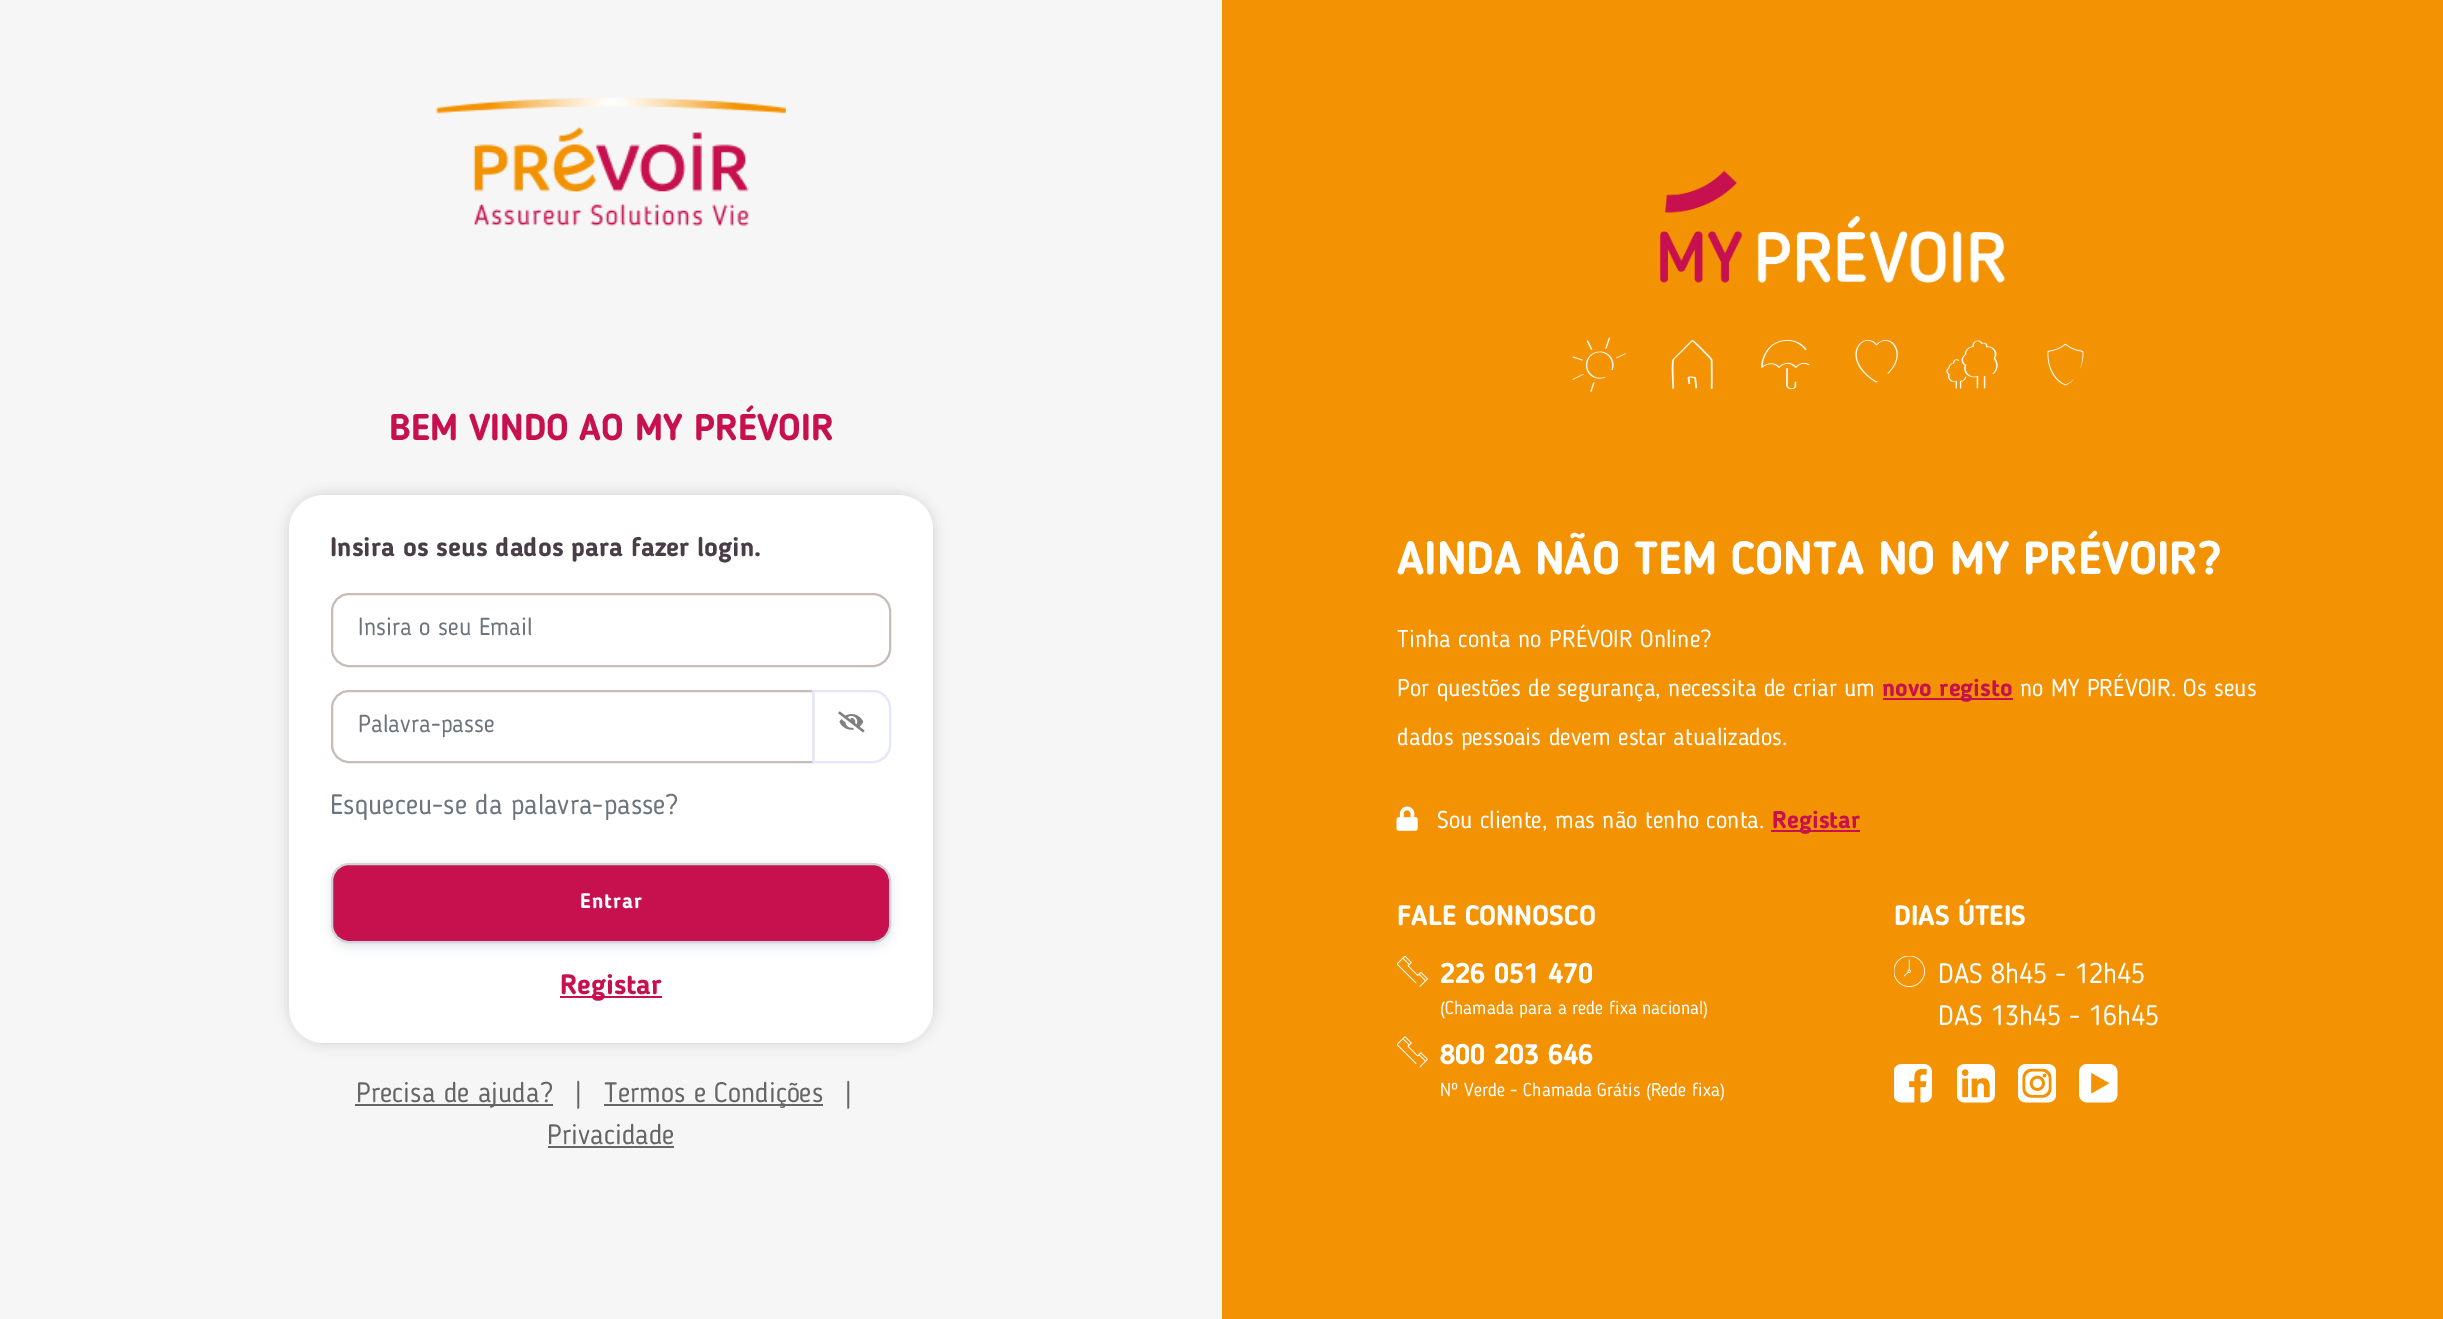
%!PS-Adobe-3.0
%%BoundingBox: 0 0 2443 1319
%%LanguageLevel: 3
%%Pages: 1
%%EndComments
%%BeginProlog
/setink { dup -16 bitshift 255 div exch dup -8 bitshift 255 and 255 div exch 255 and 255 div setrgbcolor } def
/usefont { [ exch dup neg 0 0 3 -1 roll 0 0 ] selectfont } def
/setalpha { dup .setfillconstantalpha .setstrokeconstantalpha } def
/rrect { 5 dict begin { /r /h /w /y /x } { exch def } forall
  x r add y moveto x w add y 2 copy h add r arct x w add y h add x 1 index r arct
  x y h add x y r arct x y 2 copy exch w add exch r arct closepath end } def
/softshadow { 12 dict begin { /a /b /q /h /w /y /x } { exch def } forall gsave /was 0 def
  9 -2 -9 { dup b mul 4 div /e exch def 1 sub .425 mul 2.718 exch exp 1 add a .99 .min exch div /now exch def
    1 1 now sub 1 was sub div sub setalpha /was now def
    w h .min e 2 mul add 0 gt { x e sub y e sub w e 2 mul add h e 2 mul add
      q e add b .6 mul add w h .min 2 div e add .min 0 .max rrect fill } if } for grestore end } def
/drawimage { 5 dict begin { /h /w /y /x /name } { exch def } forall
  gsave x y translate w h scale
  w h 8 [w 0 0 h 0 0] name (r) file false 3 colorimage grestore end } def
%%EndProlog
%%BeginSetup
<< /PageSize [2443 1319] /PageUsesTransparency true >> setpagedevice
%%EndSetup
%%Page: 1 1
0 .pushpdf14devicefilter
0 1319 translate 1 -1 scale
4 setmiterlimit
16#F6F6F6 setink
0 0 2443 1319 rectfill
(img1.raw) 435 98 351 128 drawimage
/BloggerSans-Bold 37 usefont
16#C7114F setink
389 440 moveto (BEM VINDO AO MY PRÉVOIR) show
16#000000 setink
289 495 644 548 35 7 0.15 softshadow
16#FFFFFF setink
289 495 644 548 35 rrect fill
/BloggerSans-Bold 26.5 usefont
16#493E46 setink
330 556 moveto (Insira os seus dados para fazer login.) show
16#C7BDB6 setink
2 setlinewidth
332 594 558 72 17 rrect stroke
/BloggerSans-Regular 24.5 usefont
16#6C757D setink
358 635 moveto (Insira o seu Email) show
16#C7BDB6 setink
349 691 moveto 813 691 lineto 813 762 lineto 349 762 lineto 339.5 762 332 754.5 332 745 curveto 332 708 lineto 332 698.5 339.5 691 349 691 curveto closepath stroke
16#6C757D setink
358 732 moveto (Palavra-passe) show
16#E4E6FC setink
813 691 moveto 873 691 lineto 882.5 691 890 698.5 890 708 curveto 890 745 lineto 890 754.5 882.5 762 873 762 curveto 813 762 lineto closepath stroke
(img2.raw) 838 711 27 22 drawimage
/BloggerSans-Regular 28 usefont
16#6C757D setink
330 814 moveto (Esqueceu-se da palavra-passe?) show
16#E1E5E8 setink
331 866 560 81 18 5 1 softshadow
16#C7114F setink
332 864 558 78 17 rrect gsave fill grestore
16#CDD3D8 setink
stroke
/BloggerSans-Bold 21 usefont
16#FFFFFF setink
580 908 moveto 1 0 (Entrar) ashow
16#C7114F setink
560 996 102 2 rectfill
/BloggerSans-Bold 28 usefont
560 994 moveto (Registar) show
16#666666 setink
355 1104 198 2 rectfill
/BloggerSans-Regular 28 usefont
356 1102 moveto (Precisa de ajuda?) show
575 1102 moveto (|) show
604 1104 219 2 rectfill
[
    [(Termos e Condições) 604 1102]
    [(|) 845 1102]
    [(Privacidade) 547 1144]
] { aload pop moveto show } forall
548 1146 126 2 rectfill
16#F39202 setink
1222 0 1221 1319 rectfill
(img3.raw) 1660 170 345 113 drawimage
(img4.raw) 1572 337 512 55 drawimage
/BloggerSans-Bold 46.25 usefont
16#FFFFFF setink
1397 574 moveto (AINDA NÃO TEM CONTA NO MY PRÉVOIR?) show
/BloggerSans-Regular 24.25 usefont
1397 647 moveto (Tinha conta no PRÉVOIR Online?) show
1397 696 moveto (Por questões de segurança, necessita de criar um) show
16#C7114F setink
1883 698 130 2 rectfill
/BloggerSans-Bold 24.25 usefont
1882 696 moveto (novo registo) show
/BloggerSans-Regular 24.25 usefont
16#FFFFFF setink
2020 696 moveto (no MY PRÉVOIR. Os seus) show
1397 745 moveto (dados pessoais devem estar atualizados.) show
(img5.raw) 1396 806 22 25 drawimage
1437 828 moveto (Sou cliente, mas não tenho conta.) show
16#C7114F setink
1771 830 89 2 rectfill
/BloggerSans-Bold 24.25 usefont
1772 828 moveto (Registar) show
/BloggerSans-Bold 28 usefont
16#FFFFFF setink
1397 925 moveto (FALE CONNOSCO) show
1894 925 moveto (DIAS ÚTEIS) show
(img6.raw) 1397 956 31 31 drawimage
1440 983 moveto (226 051 470) show
/BloggerSans-Regular 18.5 usefont
1440 1014 moveto (\(Chamada para a rede fixa nacional\)) show
(img7.raw) 1397 1036 31 32 drawimage
/BloggerSans-Bold 28 usefont
1440 1064 moveto (800 203 646) show
/BloggerSans-Regular 18.5 usefont
1440 1096 moveto (Nº Verde - Chamada Grátis \(Rede fixa\)) show
(img8.raw) 1894 956 31 31 drawimage
/BloggerSans-Regular 28 usefont
1938 983 moveto (DAS 8h45 - 12h45) show
1938 1025 moveto (DAS 13h45 - 16h45) show
(img9.raw) 1894 1064 38 39 drawimage
(img10.raw) 1957 1064 38 39 drawimage
(img11.raw) 2018 1064 38 39 drawimage
(img12.raw) 2079 1064 39 39 drawimage
.poppdf14devicefilter showpage
%%EOF
